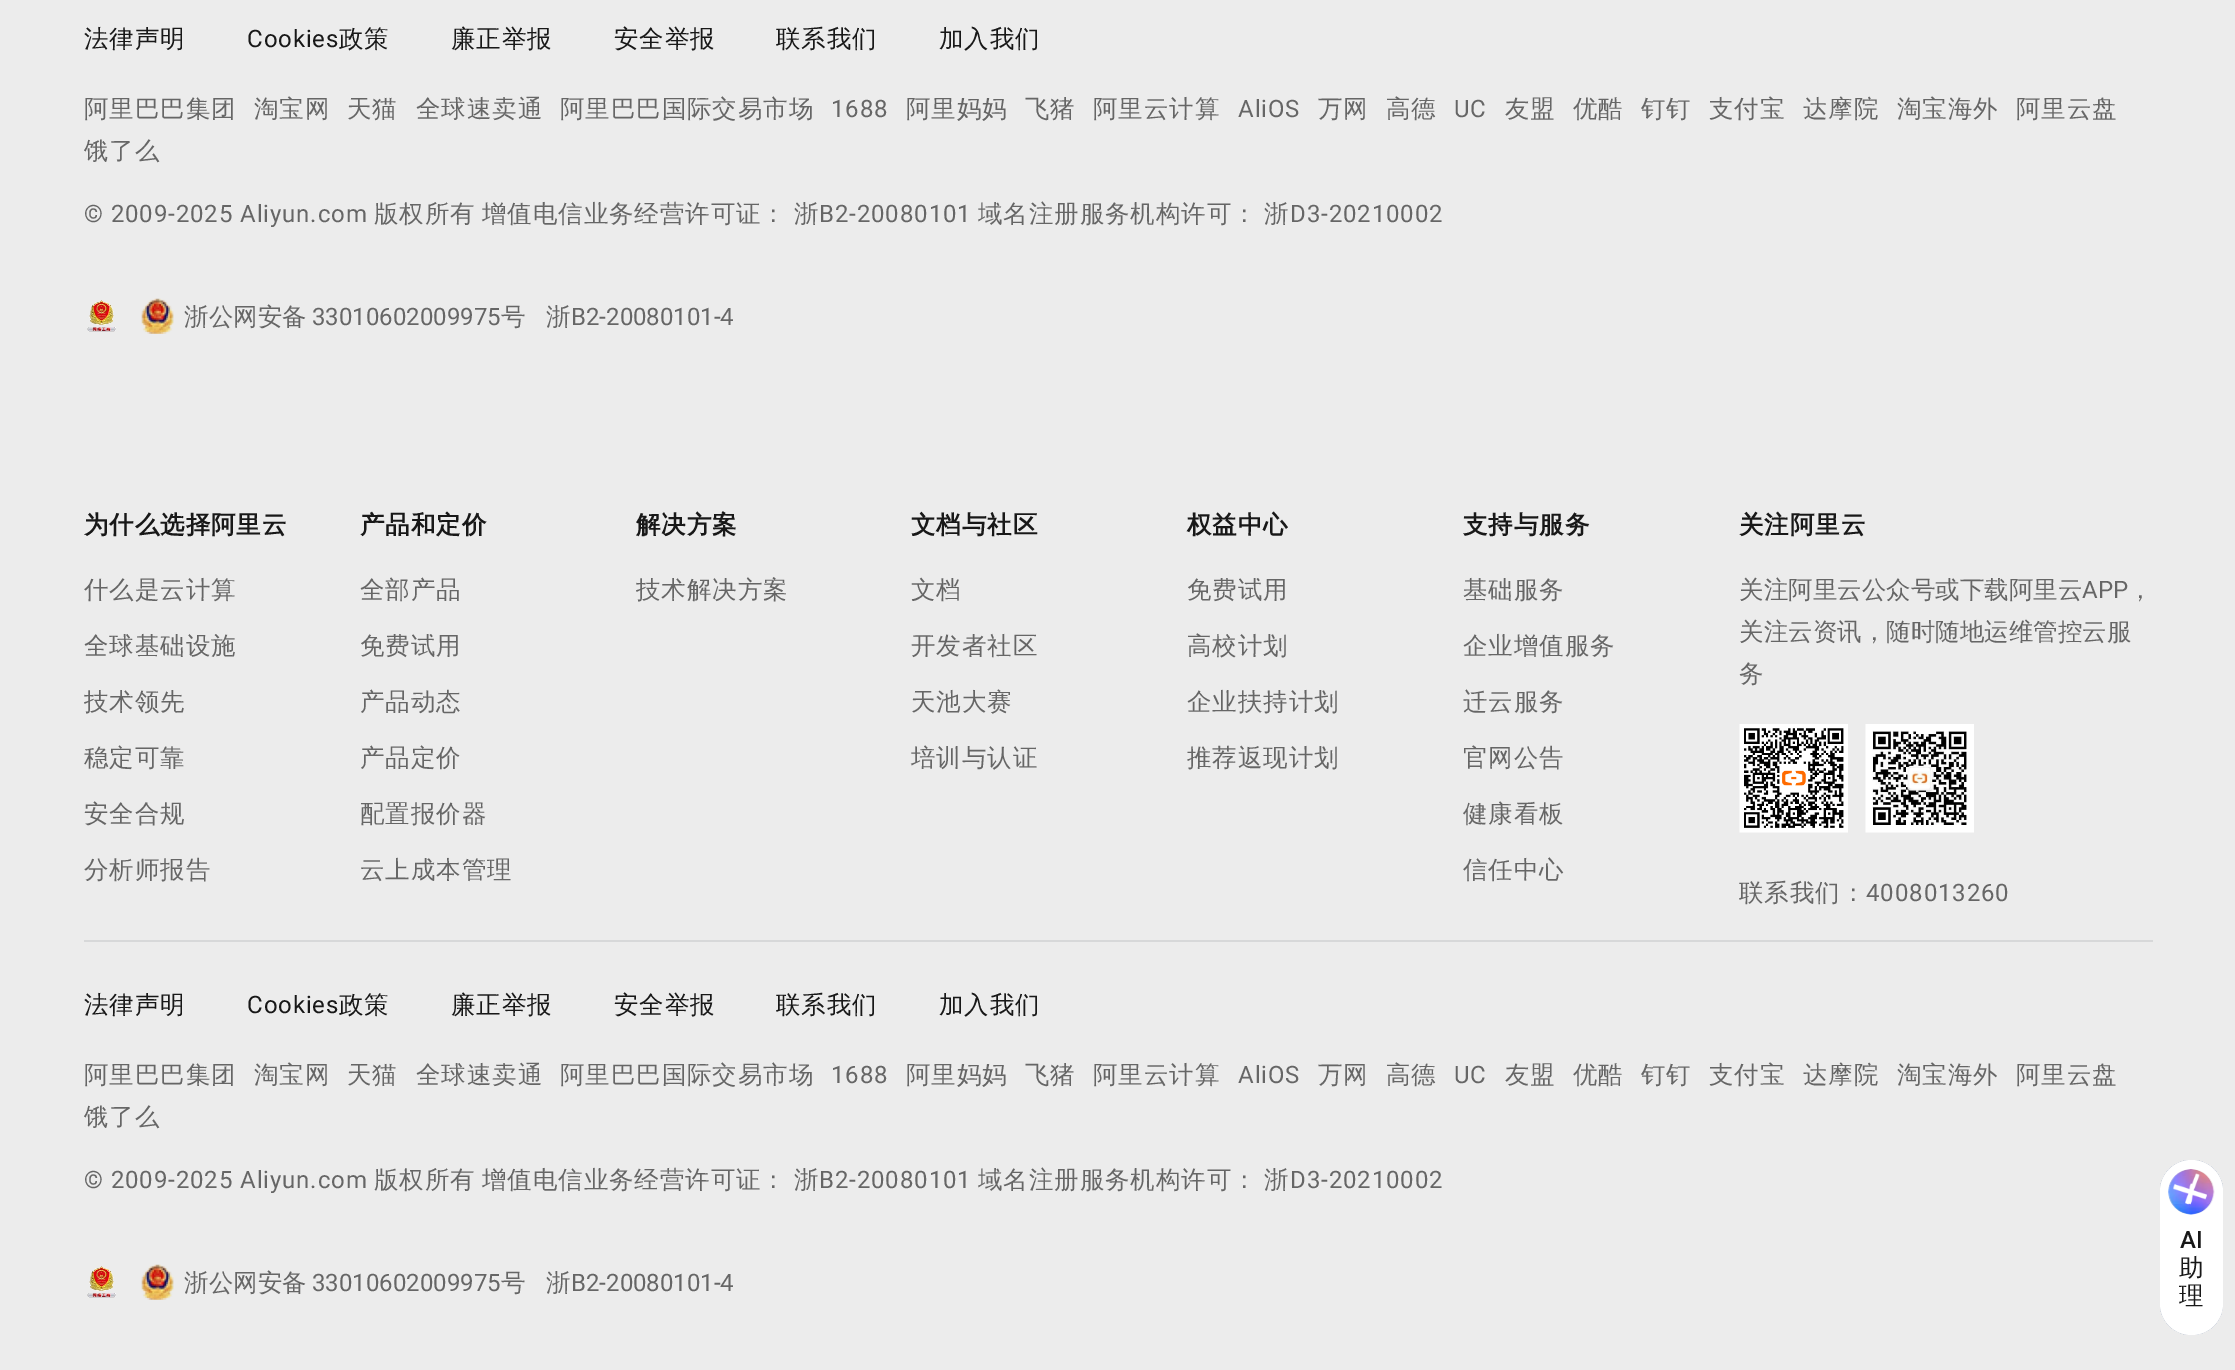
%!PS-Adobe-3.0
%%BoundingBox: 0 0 2235 1370
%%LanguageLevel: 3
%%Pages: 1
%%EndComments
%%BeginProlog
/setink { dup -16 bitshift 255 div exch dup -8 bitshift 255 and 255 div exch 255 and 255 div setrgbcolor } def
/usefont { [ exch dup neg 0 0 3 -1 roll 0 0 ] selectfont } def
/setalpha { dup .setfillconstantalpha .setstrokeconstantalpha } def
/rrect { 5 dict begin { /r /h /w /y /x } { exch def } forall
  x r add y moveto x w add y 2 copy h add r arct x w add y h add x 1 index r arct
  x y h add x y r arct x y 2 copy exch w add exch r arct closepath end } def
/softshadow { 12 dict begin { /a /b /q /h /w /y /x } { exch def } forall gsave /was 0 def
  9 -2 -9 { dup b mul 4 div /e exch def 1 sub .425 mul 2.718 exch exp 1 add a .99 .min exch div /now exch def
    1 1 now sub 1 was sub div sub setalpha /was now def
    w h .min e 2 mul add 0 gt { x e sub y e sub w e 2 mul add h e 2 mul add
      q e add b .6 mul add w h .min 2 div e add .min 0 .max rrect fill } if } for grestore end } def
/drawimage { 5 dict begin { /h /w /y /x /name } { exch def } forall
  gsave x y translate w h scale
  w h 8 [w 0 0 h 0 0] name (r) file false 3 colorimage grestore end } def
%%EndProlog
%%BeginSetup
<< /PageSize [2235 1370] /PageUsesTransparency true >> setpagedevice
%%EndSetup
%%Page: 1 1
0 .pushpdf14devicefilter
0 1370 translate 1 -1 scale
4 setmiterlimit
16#ECECEC setink
0 0 2235 1370 rectfill
/WenQuanYiZenHei-Medium 24.5 usefont
16#181818 setink
84 47 moveto 0.9 0 (法律声明) ashow
/Roboto-Regular 24.5 usefont
247 47 moveto 0.9 0 (Cookies) ashow
/WenQuanYiZenHei-Medium 24.5 usefont
339 47 moveto 0.9 0 (政策) ashow
451 47 moveto 0.9 0 (廉正举报) ashow
614 47 moveto 0.9 0 (安全举报) ashow
776 47 moveto 0.9 0 (联系我们) ashow
939 47 moveto 0.9 0 (加入我们) ashow
16#666666 setink
84 117 moveto 0.9 0 (阿里巴巴集团) ashow
254 117 moveto 0.9 0 (淘宝网) ashow
347 117 moveto 0.9 0 (天猫) ashow
416 117 moveto 0.9 0 (全球速卖通) ashow
560 117 moveto 0.9 0 (阿里巴巴国际交易市场) ashow
/Roboto-Regular 24.5 usefont
831 117 moveto 0.9 0 (1688) ashow
/WenQuanYiZenHei-Medium 24.5 usefont
906 117 moveto 0.9 0 (阿里妈妈) ashow
1025 117 moveto 0.9 0 (飞猪) ashow
1093 117 moveto 0.9 0 (阿里云计算) ashow
/Roboto-Regular 24.5 usefont
1238 117 moveto 0.9 0 (AliOS) ashow
/WenQuanYiZenHei-Medium 24.5 usefont
1318 117 moveto 0.9 0 (万网) ashow
1386 117 moveto 0.9 0 (高德) ashow
/Roboto-Regular 24.5 usefont
1454 117 moveto 0.9 0 (UC) ashow
/WenQuanYiZenHei-Medium 24.5 usefont
1505 117 moveto 0.9 0 (友盟) ashow
1573 117 moveto 0.9 0 (优酷) ashow
1641 117 moveto 0.9 0 (钉钉) ashow
1709 117 moveto 0.9 0 (支付宝) ashow
1803 117 moveto 0.9 0 (达摩院) ashow
1897 117 moveto 0.9 0 (淘宝海外) ashow
2016 117 moveto 0.9 0 (阿里云盘) ashow
84 159 moveto 0.9 0 (饿了么) ashow
/Roboto-Regular 24.5 usefont
84 222 moveto 0.9 0 (© 2009-2025 Aliyun.com) ashow
/WenQuanYiZenHei-Medium 24.5 usefont
374 222 moveto 0.9 0 (版权所有) ashow
482 222 moveto 0.9 0 (增值电信业务经营许可证：) ashow
794 222 moveto 0.9 0 (浙) ashow
/Roboto-Regular 24.5 usefont
819 222 moveto 0.9 0 (B2-20080101) ashow
/WenQuanYiZenHei-Medium 24.5 usefont
978 222 moveto 0.9 0 (域名注册服务机构许可：) ashow
1264 222 moveto 0.9 0 (浙) ashow
/Roboto-Regular 24.5 usefont
1290 222 moveto 0.9 0 (D3-20210002) ashow
(img1.raw) 87 300 29 32 drawimage
(img2.raw) 141 298 33 36 drawimage
/WenQuanYiZenHei-Medium 24.5 usefont
184 325 moveto (浙公网安备) show
/Roboto-Regular 24.5 usefont
312 325 moveto (33010602009975) show
/WenQuanYiZenHei-Medium 24.5 usefont
501 325 moveto (号) show
546 325 moveto (浙) show
/Roboto-Regular 24.5 usefont
571 325 moveto (B2-20080101-4) show
16#D7D8D9 setink
84 940 2069 2 rectfill
/WenQuanYiZenHei-Bold 24.5 usefont
16#181818 setink
84 533 moveto 0.9 0 (为什么选择阿里云) ashow
/WenQuanYiZenHei-Medium 24.5 usefont
16#666666 setink
84 598 moveto 0.9 0 (什么是云计算) ashow
84 654 moveto 0.9 0 (全球基础设施) ashow
84 710 moveto 0.9 0 (技术领先) ashow
84 766 moveto 0.9 0 (稳定可靠) ashow
84 822 moveto 0.9 0 (安全合规) ashow
84 878 moveto 0.9 0 (分析师报告) ashow
/WenQuanYiZenHei-Bold 24.5 usefont
16#181818 setink
360 533 moveto 0.9 0 (产品和定价) ashow
/WenQuanYiZenHei-Medium 24.5 usefont
16#666666 setink
360 598 moveto 0.9 0 (全部产品) ashow
360 654 moveto 0.9 0 (免费试用) ashow
360 710 moveto 0.9 0 (产品动态) ashow
360 766 moveto 0.9 0 (产品定价) ashow
360 822 moveto 0.9 0 (配置报价器) ashow
360 878 moveto 0.9 0 (云上成本管理) ashow
/WenQuanYiZenHei-Bold 24.5 usefont
16#181818 setink
636 533 moveto 0.9 0 (解决方案) ashow
/WenQuanYiZenHei-Medium 24.5 usefont
16#666666 setink
636 598 moveto 0.9 0 (技术解决方案) ashow
/WenQuanYiZenHei-Bold 24.5 usefont
16#181818 setink
911 533 moveto 0.9 0 (文档与社区) ashow
/WenQuanYiZenHei-Medium 24.5 usefont
16#666666 setink
911 598 moveto 0.9 0 (文档) ashow
911 654 moveto 0.9 0 (开发者社区) ashow
911 710 moveto 0.9 0 (天池大赛) ashow
911 766 moveto 0.9 0 (培训与认证) ashow
/WenQuanYiZenHei-Bold 24.5 usefont
16#181818 setink
1187 533 moveto 0.9 0 (权益中心) ashow
/WenQuanYiZenHei-Medium 24.5 usefont
16#666666 setink
1187 598 moveto 0.9 0 (免费试用) ashow
1187 654 moveto 0.9 0 (高校计划) ashow
1187 710 moveto 0.9 0 (企业扶持计划) ashow
1187 766 moveto 0.9 0 (推荐返现计划) ashow
/WenQuanYiZenHei-Bold 24.5 usefont
16#181818 setink
1463 533 moveto 0.9 0 (支持与服务) ashow
/WenQuanYiZenHei-Medium 24.5 usefont
16#666666 setink
1463 598 moveto 0.9 0 (基础服务) ashow
1463 654 moveto 0.9 0 (企业增值服务) ashow
1463 710 moveto 0.9 0 (迁云服务) ashow
1463 766 moveto 0.9 0 (官网公告) ashow
1463 822 moveto 0.9 0 (健康看板) ashow
1463 878 moveto 0.9 0 (信任中心) ashow
/WenQuanYiZenHei-Bold 24.5 usefont
16#181818 setink
1739 533 moveto 0.9 0 (关注阿里云) ashow
/WenQuanYiZenHei-Medium 24.5 usefont
16#666666 setink
1739 598 moveto (关注阿里云公众号或下载阿里云) show
/Roboto-Regular 24.5 usefont
2082 598 moveto (APP) show
/WenQuanYiZenHei-Medium 24.5 usefont
[
    [(，) 2128 598]
    [(关注云资讯，随时随地运维管控云服) 1739 640]
    [(务) 1739 682]
] { aload pop moveto show } forall
(img3.raw) 1739 724 109 109 drawimage
(img4.raw) 1865 724 109 109 drawimage
1739 901 moveto 0.9 0 (联系我们：) ashow
/Roboto-Regular 24.5 usefont
1866 901 moveto 0.9 0 (4008013260) ashow
/WenQuanYiZenHei-Medium 24.5 usefont
16#181818 setink
84 1013 moveto 0.9 0 (法律声明) ashow
/Roboto-Regular 24.5 usefont
247 1013 moveto 0.9 0 (Cookies) ashow
/WenQuanYiZenHei-Medium 24.5 usefont
339 1013 moveto 0.9 0 (政策) ashow
451 1013 moveto 0.9 0 (廉正举报) ashow
614 1013 moveto 0.9 0 (安全举报) ashow
776 1013 moveto 0.9 0 (联系我们) ashow
939 1013 moveto 0.9 0 (加入我们) ashow
16#666666 setink
84 1083 moveto 0.9 0 (阿里巴巴集团) ashow
254 1083 moveto 0.9 0 (淘宝网) ashow
347 1083 moveto 0.9 0 (天猫) ashow
416 1083 moveto 0.9 0 (全球速卖通) ashow
560 1083 moveto 0.9 0 (阿里巴巴国际交易市场) ashow
/Roboto-Regular 24.5 usefont
831 1083 moveto 0.9 0 (1688) ashow
/WenQuanYiZenHei-Medium 24.5 usefont
906 1083 moveto 0.9 0 (阿里妈妈) ashow
1025 1083 moveto 0.9 0 (飞猪) ashow
1093 1083 moveto 0.9 0 (阿里云计算) ashow
/Roboto-Regular 24.5 usefont
1238 1083 moveto 0.9 0 (AliOS) ashow
/WenQuanYiZenHei-Medium 24.5 usefont
1318 1083 moveto 0.9 0 (万网) ashow
1386 1083 moveto 0.9 0 (高德) ashow
/Roboto-Regular 24.5 usefont
1454 1083 moveto 0.9 0 (UC) ashow
/WenQuanYiZenHei-Medium 24.5 usefont
1505 1083 moveto 0.9 0 (友盟) ashow
1573 1083 moveto 0.9 0 (优酷) ashow
1641 1083 moveto 0.9 0 (钉钉) ashow
1709 1083 moveto 0.9 0 (支付宝) ashow
1803 1083 moveto 0.9 0 (达摩院) ashow
1897 1083 moveto 0.9 0 (淘宝海外) ashow
2016 1083 moveto 0.9 0 (阿里云盘) ashow
84 1125 moveto 0.9 0 (饿了么) ashow
/Roboto-Regular 24.5 usefont
84 1188 moveto 0.9 0 (© 2009-2025 Aliyun.com) ashow
/WenQuanYiZenHei-Medium 24.5 usefont
374 1188 moveto 0.9 0 (版权所有) ashow
482 1188 moveto 0.9 0 (增值电信业务经营许可证：) ashow
794 1188 moveto 0.9 0 (浙) ashow
/Roboto-Regular 24.5 usefont
819 1188 moveto 0.9 0 (B2-20080101) ashow
/WenQuanYiZenHei-Medium 24.5 usefont
978 1188 moveto 0.9 0 (域名注册服务机构许可：) ashow
1264 1188 moveto 0.9 0 (浙) ashow
/Roboto-Regular 24.5 usefont
1290 1188 moveto 0.9 0 (D3-20210002) ashow
(img1.raw) 87 1266 29 32 drawimage
(img2.raw) 141 1264 33 36 drawimage
/WenQuanYiZenHei-Medium 24.5 usefont
184 1291 moveto (浙公网安备) show
/Roboto-Regular 24.5 usefont
312 1291 moveto (33010602009975) show
/WenQuanYiZenHei-Medium 24.5 usefont
501 1291 moveto (号) show
546 1291 moveto (浙) show
/Roboto-Regular 24.5 usefont
571 1291 moveto (B2-20080101-4) show
gsave
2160 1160 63 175 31.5 rrect clip newpath
16#BADAF1 setink
2072 1073 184 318 0 7 1 softshadow
16#F1CABE setink
2072 1073 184 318 0 7 0.37 softshadow
grestore
16#FFFFFF setink
2160 1160 63 175 31.5 rrect fill
(img5.raw) 2168 1169 47 46 drawimage
(img6.raw) 2173 1173 34 32 drawimage
/Roboto-Medium 24.5 usefont
16#181818 setink
2180 1248 moveto (AI) show
/WenQuanYiZenHei-Medium 24.5 usefont
2179 1276 moveto (助) show
2179 1304 moveto (理) show
.poppdf14devicefilter showpage
%%EOF
